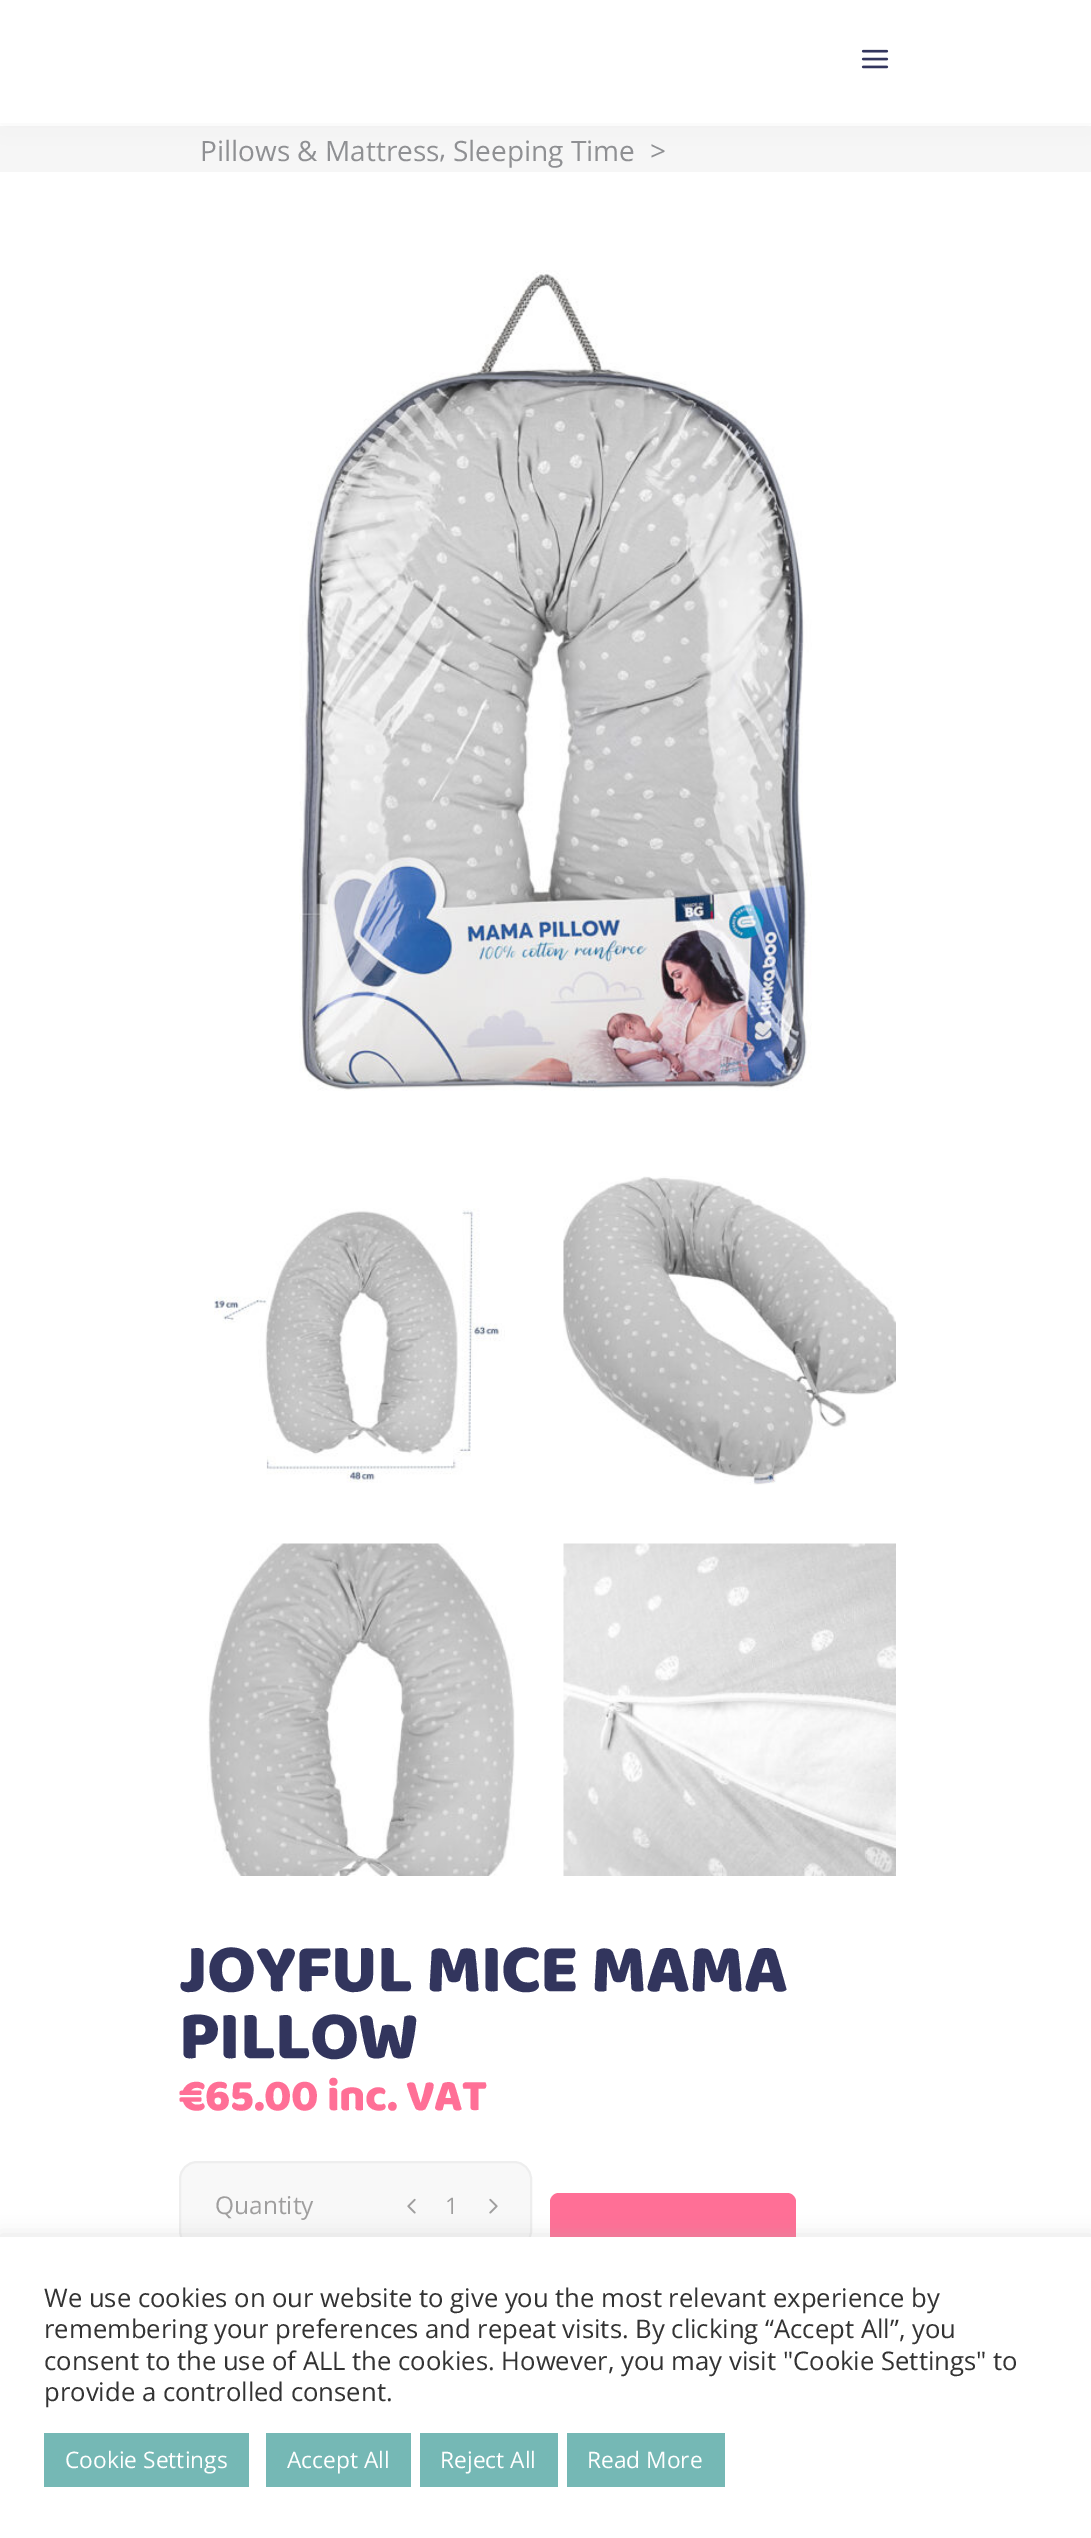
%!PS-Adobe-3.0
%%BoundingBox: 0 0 1091 2538
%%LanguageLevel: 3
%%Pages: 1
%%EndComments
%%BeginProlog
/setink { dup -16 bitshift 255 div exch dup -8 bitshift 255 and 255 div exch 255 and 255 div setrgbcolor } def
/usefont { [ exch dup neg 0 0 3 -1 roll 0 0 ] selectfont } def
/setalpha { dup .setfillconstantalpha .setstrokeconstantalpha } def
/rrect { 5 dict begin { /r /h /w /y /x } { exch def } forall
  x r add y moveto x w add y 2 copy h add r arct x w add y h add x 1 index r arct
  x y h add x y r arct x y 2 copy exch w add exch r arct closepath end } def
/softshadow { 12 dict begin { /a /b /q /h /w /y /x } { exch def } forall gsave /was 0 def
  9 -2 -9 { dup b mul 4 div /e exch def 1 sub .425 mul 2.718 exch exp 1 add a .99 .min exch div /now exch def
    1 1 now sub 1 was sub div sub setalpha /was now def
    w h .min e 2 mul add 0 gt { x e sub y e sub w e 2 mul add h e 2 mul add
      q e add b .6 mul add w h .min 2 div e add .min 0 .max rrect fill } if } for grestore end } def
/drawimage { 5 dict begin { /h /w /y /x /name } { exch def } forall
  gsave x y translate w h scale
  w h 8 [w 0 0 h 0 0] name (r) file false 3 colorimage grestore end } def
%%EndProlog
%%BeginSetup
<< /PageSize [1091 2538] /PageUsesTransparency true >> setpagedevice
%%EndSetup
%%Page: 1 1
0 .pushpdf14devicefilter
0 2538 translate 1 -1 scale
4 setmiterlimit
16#FFFFFF setink
0 0 1091 2538 rectfill
16#F6F6F6 setink
0 126 1091 46 rectfill
16#958897 setink
0 0 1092 123 0 18.5 0.09 softshadow
16#FFFFFF setink
0 0 1091 123 rectfill
(img1.raw) 861 49 28 20 drawimage
/OpenSans-Regular 28 usefont
16#8F9093 setink
[
    [(Pillows & Mattress) 200 161]
    [(,) 439 158]
    [(Sleeping Time) 453 161]
    [(>) 650 161]
] { aload pop moveto show } forall
(img2.raw) 299 270 513 821 drawimage
(img3.raw) 214 1208 291 275 drawimage
(img4.raw) 563 1176 333 309 drawimage
(img5.raw) 207 1543 308 333 drawimage
(img6.raw) 563 1543 333 333 drawimage
/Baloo-Regular 70 usefont
16#32355D setink
179 1991 moveto -0.75 0 (JOYFUL MICE MAMA) ashow
179 2058 moveto -0.75 0 (PILLOW) ashow
/Baloo-Regular 45.5 usefont
16#FF6F96 setink
179 2110 moveto -0.5 0 (€65.00 inc. VAT) ashow
16#F8F8F8 setink
180 2162 351 86 17 rrect gsave fill grestore
16#EEEEEE setink
2 setlinewidth
stroke
/OpenSans-Regular 24.5 usefont
16#9F9E9E setink
215 2214 moveto (Quantity) show
(img7.raw) 407 2198 9 16 drawimage
/OpenSans-Regular 22.75 usefont
445 2214 moveto (1) show
(img8.raw) 489 2198 9 16 drawimage
16#FF6F96 setink
550 2193 246 87 9 rrect fill
16#ACABAB setink
0 2235 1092 303 0 9 0.3 softshadow
16#FFFFFF setink
0 2237 1091 301 rectfill
/OpenSans-Regular 25.65 usefont
16#333333 setink
[
    [(We use cookies on our website to give you the most relevant experience by) 44 2307]
    [(remembering your preferences and repeat visits. By clicking “Accept All”, you) 44 2338]
    [(consent to the use of ALL the cookies. However, you may visit "Cookie Settings" to) 44 2370]
    [(provide a controlled consent.) 44 2401]
] { aload pop moveto show } forall
16#75B8B5 setink
44 2433 205 54 rectfill
/OpenSans-Regular 22.75 usefont
16#FFFFFF setink
65 2468 moveto (Cookie Settings) show
16#75B8B5 setink
266 2433 145 54 rectfill
16#FFFFFF setink
287 2468 moveto (Accept All) show
16#75B8B5 setink
420 2433 138 54 rectfill
16#FFFFFF setink
440 2468 moveto (Reject All) show
16#75B8B5 setink
567 2433 158 54 rectfill
16#FFFFFF setink
587 2468 moveto (Read More) show
.poppdf14devicefilter showpage
%%EOF
